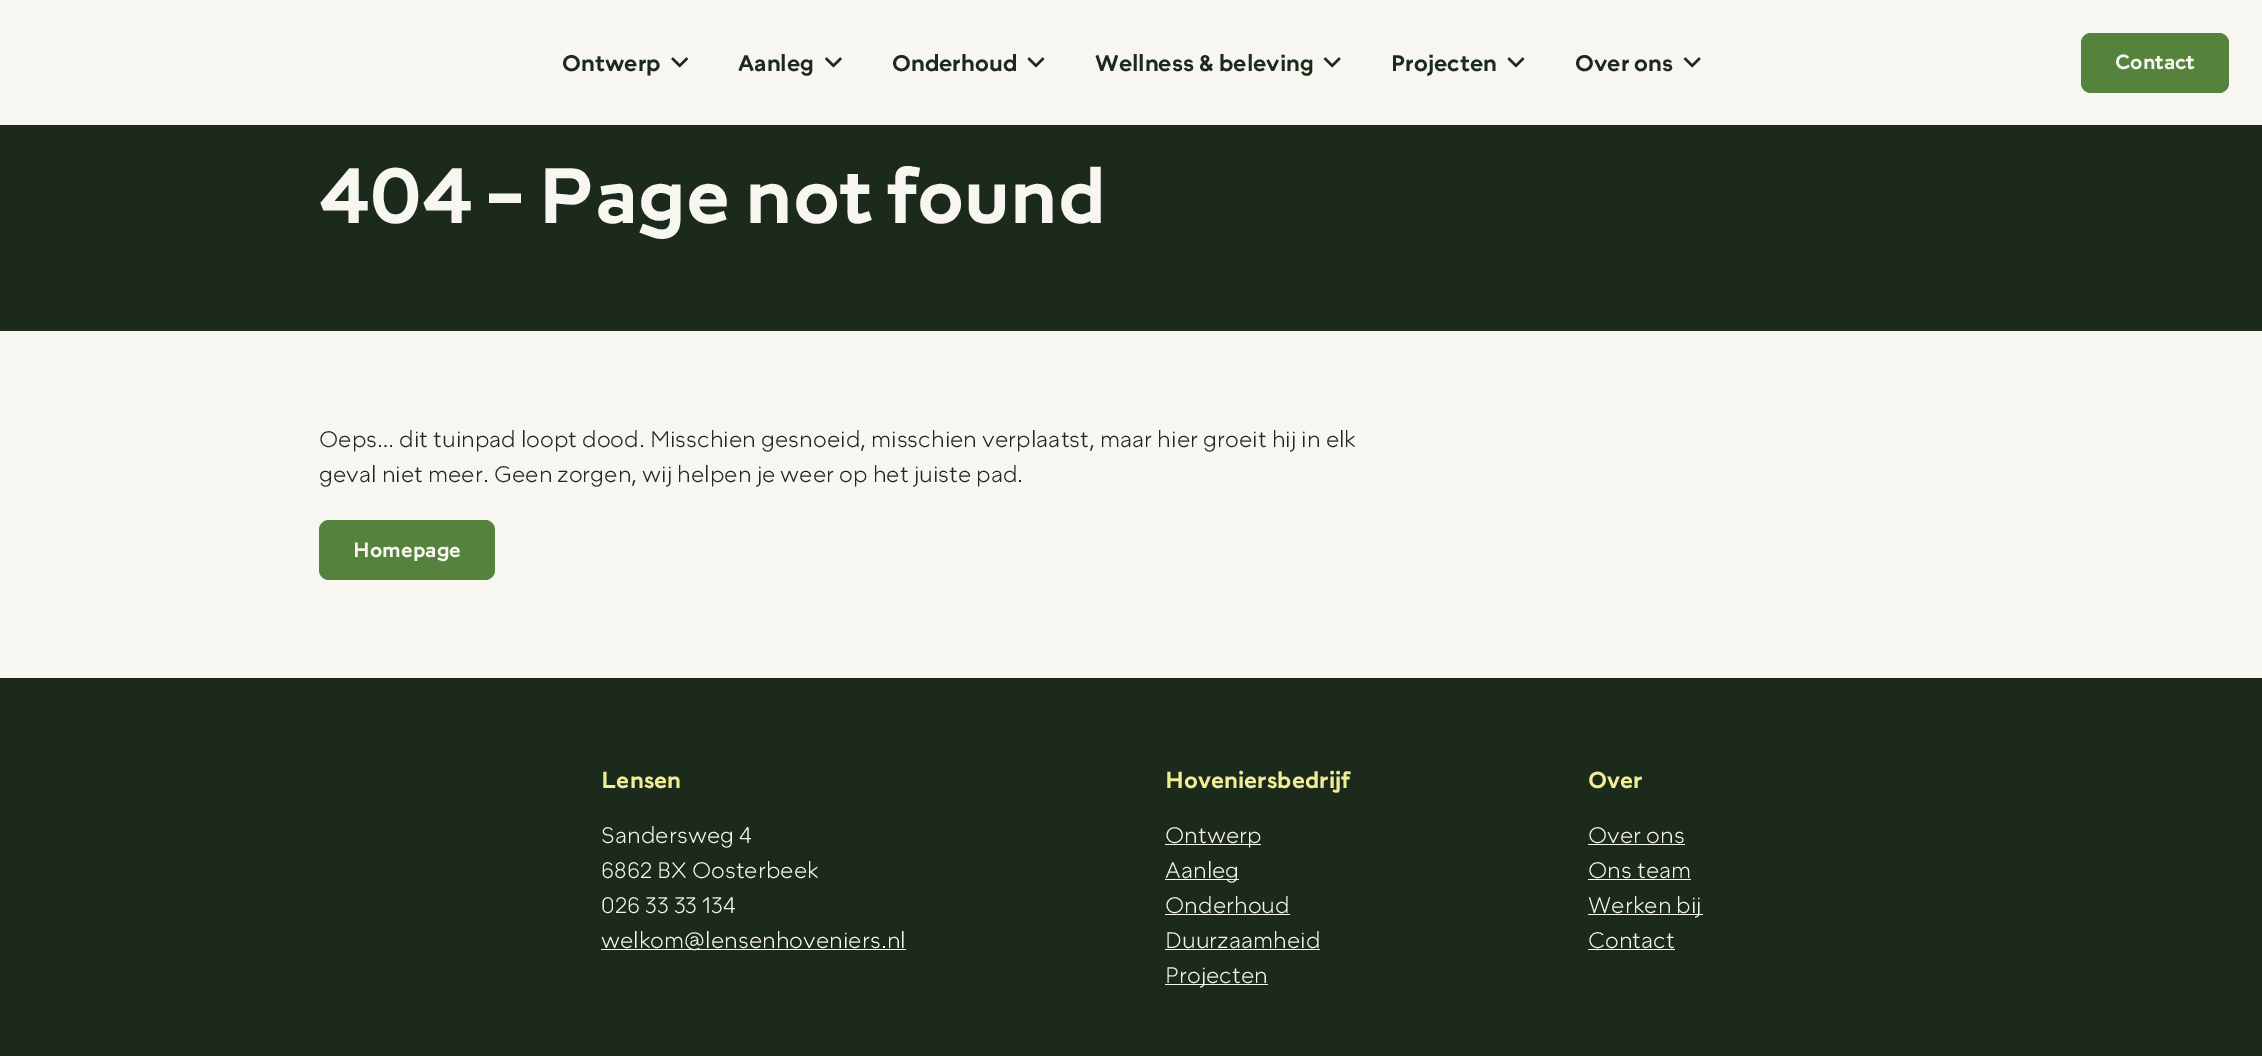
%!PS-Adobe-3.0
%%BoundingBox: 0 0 2262 1056
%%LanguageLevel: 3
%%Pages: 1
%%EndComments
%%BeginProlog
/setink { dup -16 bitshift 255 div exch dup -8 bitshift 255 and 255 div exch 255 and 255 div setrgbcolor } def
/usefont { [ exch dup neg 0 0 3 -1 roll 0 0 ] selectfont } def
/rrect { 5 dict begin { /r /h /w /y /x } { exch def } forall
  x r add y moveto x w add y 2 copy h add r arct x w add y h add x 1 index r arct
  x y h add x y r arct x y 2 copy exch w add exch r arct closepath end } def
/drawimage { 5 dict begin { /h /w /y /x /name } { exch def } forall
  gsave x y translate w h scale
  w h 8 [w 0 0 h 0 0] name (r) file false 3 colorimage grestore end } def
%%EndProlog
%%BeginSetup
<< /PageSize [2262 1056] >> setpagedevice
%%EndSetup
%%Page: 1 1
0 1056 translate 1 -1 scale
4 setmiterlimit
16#F7F6F0 setink
0 0 2262 1056 rectfill
16#1A271A setink
0 125 moveto 0 126 lineto 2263 126 lineto 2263 1 lineto 2262 1 lineto 2262 125 lineto closepath fill
/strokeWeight-Bold 22.5 usefont
16#1C2A1C setink
562 71 moveto (Ontwerp) show
(img1.raw) 671 57 18 11 drawimage
738 71 moveto (Aanleg) show
(img2.raw) 825 57 17 11 drawimage
892 71 moveto (Onderhoud) show
(img3.raw) 1027 57 18 11 drawimage
1095 71 moveto (Wellness & beleving) show
(img4.raw) 1323 57 18 11 drawimage
1391 71 moveto (Projecten) show
(img3.raw) 1507 57 18 11 drawimage
1575 71 moveto (Over ons) show
(img4.raw) 1683 57 18 11 drawimage
16#55833D setink
2081 33 148 60 10 rrect fill
/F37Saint-Bold 20 usefont
16#F7F6F0 setink
2115 69 moveto (Contact) show
16#1C2A1C setink
0 126 2262 205 rectfill
/F37Saint-Bold 76 usefont
16#F7F6F0 setink
319 223 moveto (404 – Page not found) show
/strokeWeight-Light 22.5 usefont
16#1C2A1C setink
319 447 moveto (Oeps… dit tuinpad loopt dood. Misschien gesnoeid, misschien verplaatst, maar hier groeit hij in elk) show
319 482 moveto (geval niet meer. Geen zorgen, wij helpen je weer op het juiste pad.) show
16#55833D setink
319 520 176 60 10 rrect fill
/F37Saint-Bold 20 usefont
16#F7F6F0 setink
353 557 moveto (Homepage) show
16#1C2A1C setink
0 678 2262 378 rectfill
/F37Saint-Bold 22.5 usefont
16#F2ED94 setink
601 788 moveto (Lensen) show
/strokeWeight-Light 22.5 usefont
16#F7F6F0 setink
[
    [(Sandersweg 4) 601 843]
    [(6862 BX Oosterbeek) 601 878]
    [(026 33 33 134) 601 913]
] { aload pop moveto show } forall
601 949 305 1 rectfill
601 948 moveto (welkom@lensenhoveniers.nl) show
/F37Saint-Bold 22.5 usefont
16#F2ED94 setink
1165 788 moveto (Hoveniersbedrijf) show
16#F7F6F0 setink
1165 844 96 1 rectfill
/strokeWeight-Light 22.5 usefont
1165 843 moveto (Ontwerp) show
1165 879 74 1 rectfill
1165 878 moveto (Aanleg) show
1165 913 moveto (Onderhoud) show
1165 914 125 1 rectfill
1165 948 moveto (Duurzaamheid) show
1165 949 155 1 rectfill
1165 984 103 1 rectfill
1165 983 moveto (Projecten) show
/F37Saint-Bold 22.5 usefont
16#F2ED94 setink
1588 788 moveto (Over) show
/strokeWeight-Light 22.5 usefont
16#F7F6F0 setink
1588 843 moveto (Over ons) show
1588 844 97 1 rectfill
1588 878 moveto (Ons team) show
1588 879 103 1 rectfill
1588 914 115 1 rectfill
1588 913 moveto (Werken bij) show
1588 948 moveto (Contact) show
1588 949 87 1 rectfill
showpage
%%EOF
